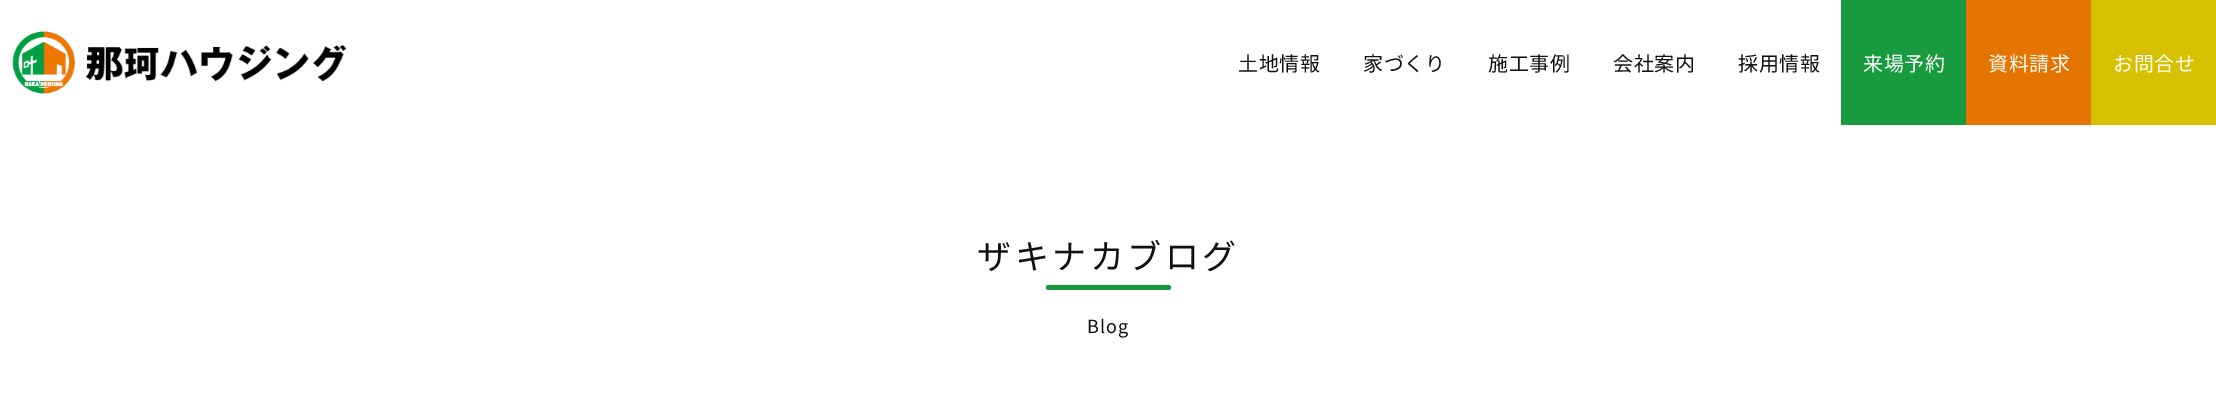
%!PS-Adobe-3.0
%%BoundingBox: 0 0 2216 412
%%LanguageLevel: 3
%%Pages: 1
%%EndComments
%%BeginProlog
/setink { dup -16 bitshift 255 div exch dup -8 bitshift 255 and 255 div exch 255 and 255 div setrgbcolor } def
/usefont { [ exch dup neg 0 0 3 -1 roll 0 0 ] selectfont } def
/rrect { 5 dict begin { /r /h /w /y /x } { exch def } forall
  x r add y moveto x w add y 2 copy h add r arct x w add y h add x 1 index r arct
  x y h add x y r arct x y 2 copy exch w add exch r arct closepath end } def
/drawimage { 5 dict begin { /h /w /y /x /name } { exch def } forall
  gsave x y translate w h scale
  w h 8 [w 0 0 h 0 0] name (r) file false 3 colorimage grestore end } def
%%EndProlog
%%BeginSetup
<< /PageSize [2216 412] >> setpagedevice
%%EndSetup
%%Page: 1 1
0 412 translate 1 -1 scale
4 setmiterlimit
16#FFFFFF setink
0 0 2216 412 rectfill
(img1.raw) 12 31 335 63 drawimage
/NotoSansJP-Regular 20 usefont
16#111111 setink
1238 71 moveto 0.5 0 (土地情報) ashow
1363 71 moveto 0.5 0 (家づくり) ashow
1488 71 moveto 0.5 0 (施工事例) ashow
1613 71 moveto 0.5 0 (会社案内) ashow
1738 71 moveto 0.5 0 (採用情報) ashow
16#189B3E setink
1841 0 125 125 rectfill
16#FFFFFF setink
1863 71 moveto 0.5 0 (来場予約) ashow
16#E47500 setink
1966 0 125 125 rectfill
16#FFFFFF setink
1988 71 moveto 0.5 0 (資料請求) ashow
16#D6C000 setink
2091 0 125 125 rectfill
16#FFFFFF setink
2113 71 moveto 0.5 0 (お問合せ) ashow
/NotoSansJP-Regular 34 usefont
16#111111 setink
977 269 moveto 3.5 0 (ザキナカブログ) ashow
16#16993E setink
1046 285 125 5 2.5 rrect fill
/NotoSansJP-Regular 18 usefont
16#111111 setink
1087 333 moveto 1 0 (Blog) ashow
showpage
%%EOF
